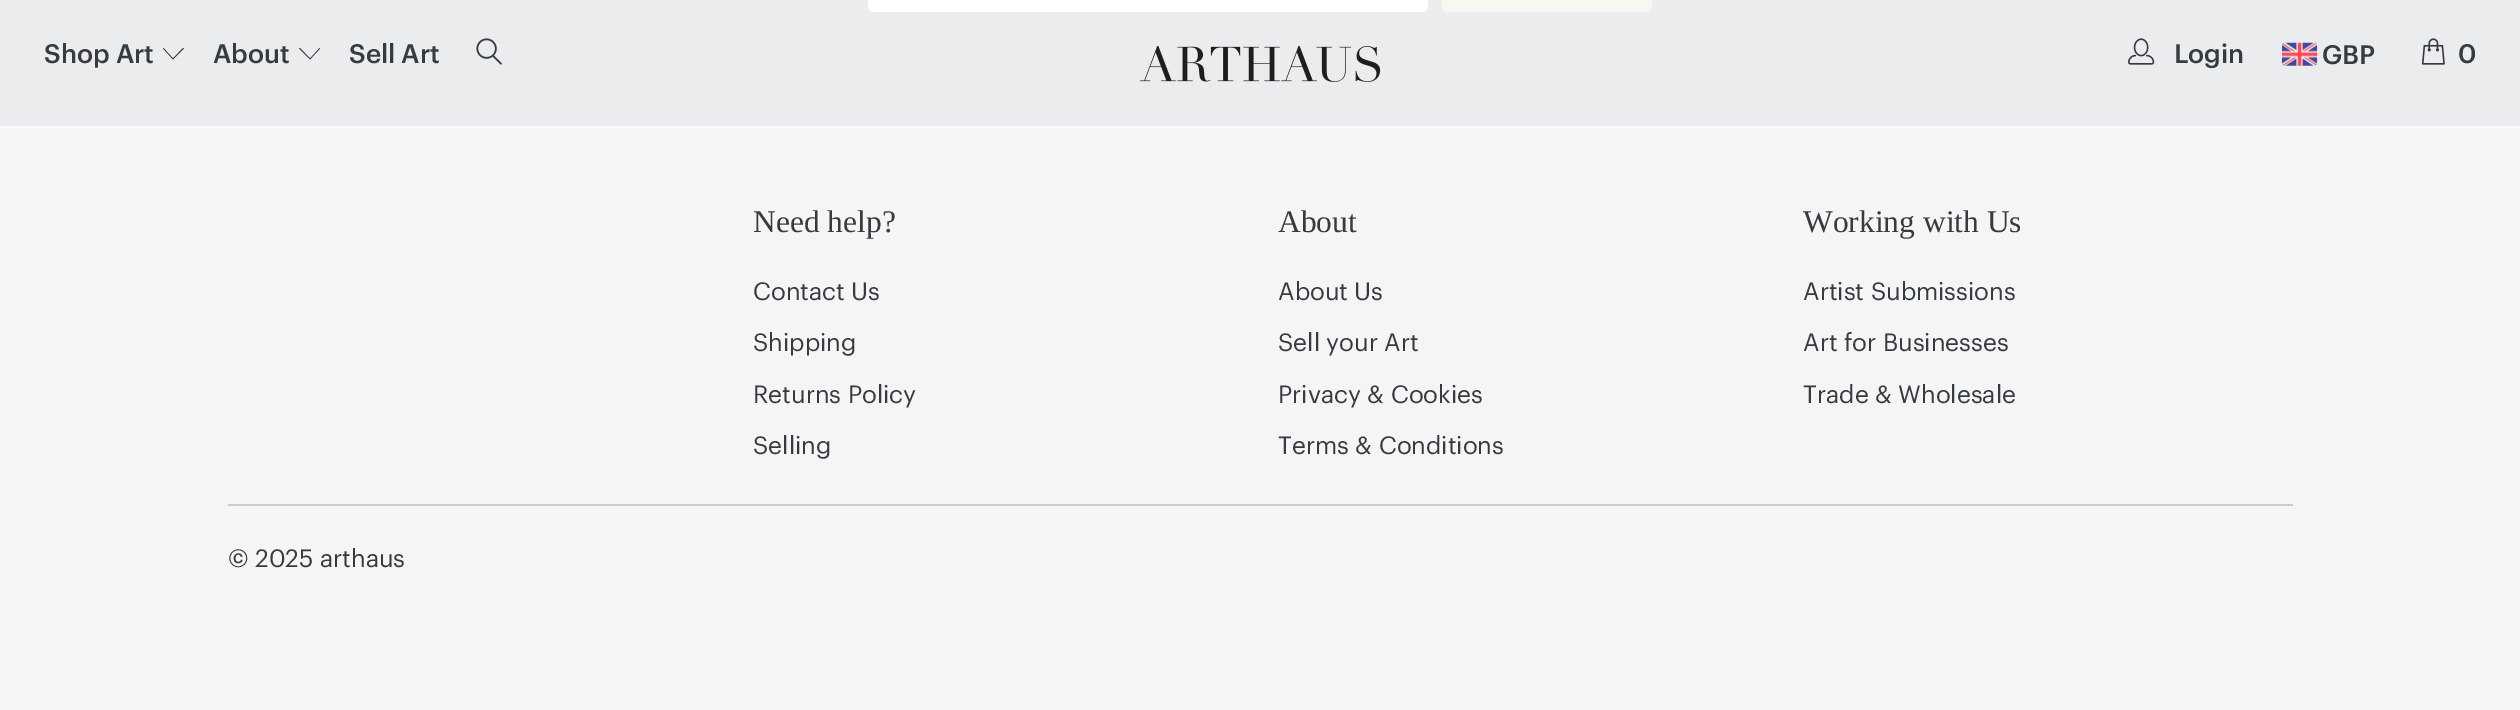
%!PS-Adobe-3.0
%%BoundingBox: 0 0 2520 710
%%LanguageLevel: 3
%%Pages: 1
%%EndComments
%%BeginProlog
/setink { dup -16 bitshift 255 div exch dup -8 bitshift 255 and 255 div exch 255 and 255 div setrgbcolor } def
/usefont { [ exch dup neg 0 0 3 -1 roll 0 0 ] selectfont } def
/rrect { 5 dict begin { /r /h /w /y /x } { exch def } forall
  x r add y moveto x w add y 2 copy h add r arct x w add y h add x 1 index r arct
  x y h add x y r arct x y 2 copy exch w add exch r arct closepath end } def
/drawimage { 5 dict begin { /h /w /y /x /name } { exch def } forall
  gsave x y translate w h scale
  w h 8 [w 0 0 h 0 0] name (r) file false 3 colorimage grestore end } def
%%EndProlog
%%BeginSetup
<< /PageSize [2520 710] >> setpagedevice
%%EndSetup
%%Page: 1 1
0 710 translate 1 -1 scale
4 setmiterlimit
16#F5F5F5 setink
0 0 2520 710 rectfill
16#EBECED setink
0 0 2520 126 rectfill
16#FFFFFF setink
868 -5 560 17 5 rrect fill
16#F9F7F2 setink
1443 -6 208 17 4 rrect gsave fill grestore
2 setlinewidth
stroke
/Graphik-Medium 26.25 usefont
16#353B40 setink
44 63 moveto (Shop Art) show
173 59.5 moveto 163 48.5 lineto 163.5 48 lineto 173 58.5 lineto 183 48 lineto 184 48.5 lineto closepath fill
213 63 moveto (About) show
310 59.5 moveto 299 48.5 lineto 300 48 lineto 310 58.5 lineto 319.5 48 lineto 320 48.5 lineto closepath fill
349 63 moveto (Sell Art) show
(img1.raw) 476 38 26 27 drawimage
(img2.raw) 1140 46 241 36 drawimage
(img3.raw) 2128 38 27 27 drawimage
2174 63 moveto (Login) show
(img4.raw) 2282 42 35 24 drawimage
2322 64 moveto (GBP) show
(img5.raw) 2421 38 24 27 drawimage
2458 63 moveto (0) show
16#FAFAFA setink
0 126 2520 2 rectfill
/LiberationSerif-Regular 31.5 usefont
16#353B40 setink
753 232 moveto (Need help?) show
/Graphik-Regular 24.5 usefont
[
    [(Contact Us) 753 300]
    [(Shipping) 753 351]
    [(Returns Policy) 753 403]
    [(Selling) 753 454]
] { aload pop moveto show } forall
/LiberationSerif-Regular 31.5 usefont
1278 232 moveto (About) show
/Graphik-Regular 24.5 usefont
[
    [(About Us) 1278 300]
    [(Sell your Art) 1278 351]
    [(Privacy & Cookies) 1278 403]
    [(Terms & Conditions) 1278 454]
] { aload pop moveto show } forall
/LiberationSerif-Regular 31.5 usefont
1803 232 moveto (Working with Us) show
/Graphik-Regular 24.5 usefont
[
    [(Artist Submissions) 1803 300]
    [(Art for Businesses) 1803 351]
    [(Trade & Wholesale) 1803 403]
] { aload pop moveto show } forall
16#CCCCCC setink
228 504 2065 2 rectfill
16#353B40 setink
228 567 moveto (© 2025 arthaus) show
showpage
%%EOF
